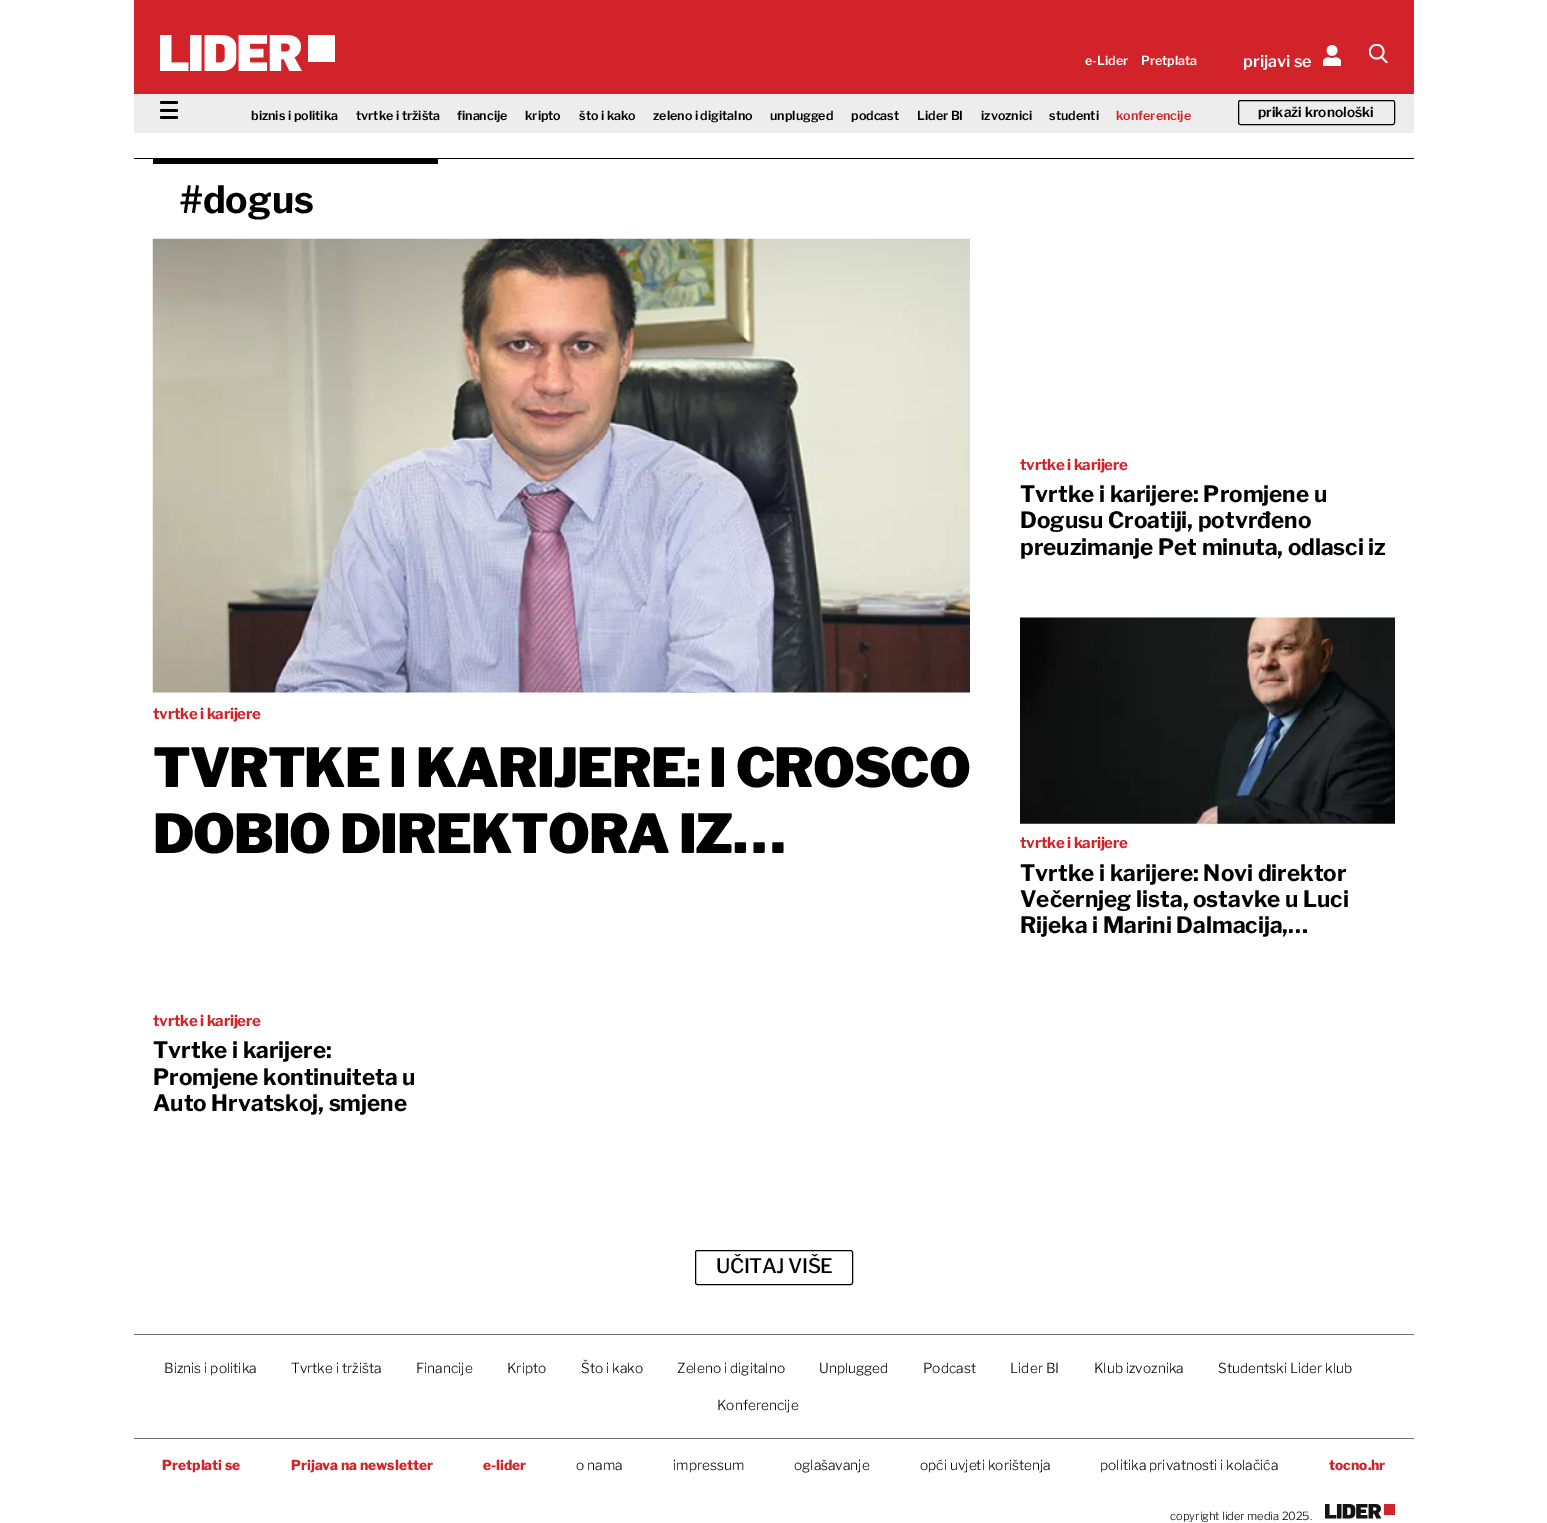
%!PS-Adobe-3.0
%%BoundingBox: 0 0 1547 1523
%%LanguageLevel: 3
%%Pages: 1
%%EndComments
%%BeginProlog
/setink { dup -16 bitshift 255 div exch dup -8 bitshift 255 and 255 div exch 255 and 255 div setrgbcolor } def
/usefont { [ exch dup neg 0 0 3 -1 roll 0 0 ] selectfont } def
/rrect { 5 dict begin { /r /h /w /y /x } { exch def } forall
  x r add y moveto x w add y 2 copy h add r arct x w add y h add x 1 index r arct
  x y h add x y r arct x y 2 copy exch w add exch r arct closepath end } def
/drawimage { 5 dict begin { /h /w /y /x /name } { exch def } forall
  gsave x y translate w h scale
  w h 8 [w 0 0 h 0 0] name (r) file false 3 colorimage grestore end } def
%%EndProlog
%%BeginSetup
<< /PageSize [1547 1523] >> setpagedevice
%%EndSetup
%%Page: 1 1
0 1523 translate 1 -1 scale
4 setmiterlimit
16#FFFFFF setink
0 0 1547 1523 rectfill
16#D2232A setink
134 0 1280 94 rectfill
(img1.raw) 160 35 175 36 drawimage
/LibreFranklin-SemiBold 12.5 usefont
16#FFFFFF setink
1085 65 moveto (e-Lider) show
1141 65 moveto (Pretplata) show
/LibreFranklin-SemiBold 16.25 usefont
1243 67 moveto (prijavi se) show
(img2.raw) 1323 45 18 21 drawimage
(img3.raw) 1369 44 19 19 drawimage
16#EDEDED setink
134 94 1280 39 rectfill
16#000000 setink
160 109 18 3 1.5 rrect fill
160 101 18 3 1.5 rrect fill
160 116 18 3 1.5 rrect fill
/LibreFranklin-SemiBold 12.5 usefont
[
    [(biznis i politika) 251 120]
    [(tvrtke i tržišta) 356 120]
    [(financije) 457 120]
    [(kripto) 525 120]
    [(što i kako) 579 120]
    [(zeleno i digitalno) 653 120]
    [(unplugged) 770 120]
    [(podcast) 851 120]
    [(Lider BI) 917 120]
    [(izvoznici) 981 120]
    [(studenti) 1049 120]
] { aload pop moveto show } forall
16#D2232A setink
1116 120 moveto (konferencije) show
16#000000 setink
1238.5 100.5 156 24 2 rrect stroke
/LibreFranklin-SemiBold 13.75 usefont
1258 117 moveto (prikaži kronološki) show
134 158 1280 1 rectfill
153 159 285 5 rectfill
/LibreFranklin-Bold 37.5 usefont
180 213 moveto (#dogus) show
(img4.raw) 152 238 818 455 drawimage
/LibreFranklin-Bold 15 usefont
16#D2232A setink
153 719 moveto -0.25 0 (tvrtke i karijere) ashow
/LibreFranklin-Black 53.75 usefont
16#000000 setink
153 787 moveto -1.1 0 (TVRTKE I KARIJERE: I CROSCO) ashow
153 853 moveto -1.1 0 (DOBIO DIREKTORA IZ…) ashow
/LibreFranklin-Bold 15 usefont
16#D2232A setink
1020 470 moveto -0.25 0 (tvrtke i karijere) ashow
/LibreFranklin-Bold 22.5 usefont
16#000000 setink
[
    [(Tvrtke i karijere: Promjene u) 1020 502]
    [(Dogusu Croatiji, potvrđeno) 1020 528]
    [(preuzimanje Pet minuta, odlasci iz) 1020 555]
] { aload pop moveto show } forall
(img5.raw) 1020 617 375 207 drawimage
/LibreFranklin-Bold 15 usefont
16#D2232A setink
1020 848 moveto -0.25 0 (tvrtke i karijere) ashow
/LibreFranklin-Bold 22.5 usefont
16#000000 setink
[
    [(Tvrtke i karijere: Novi direktor) 1020 881]
    [(Večernjeg lista, ostavke u Luci) 1020 907]
    [(Rijeka i Marini Dalmacija,…) 1020 933]
] { aload pop moveto show } forall
/LibreFranklin-Bold 15 usefont
16#D2232A setink
153 1026 moveto -0.25 0 (tvrtke i karijere) ashow
/LibreFranklin-Bold 22.5 usefont
16#000000 setink
[
    [(Tvrtke i karijere:) 153 1058]
    [(Promjene kontinuiteta u) 153 1085]
    [(Auto Hrvatskoj, smjene) 153 1111]
] { aload pop moveto show } forall
695.5 1250.5 157 34 2 rrect stroke
/LibreFranklin-Medium 20 usefont
716 1273 moveto -0.4 0 (UČITAJ VIŠE) ashow
16#707070 setink
134 1334 1280 1 rectfill
/LibreFranklin-Light 13.75 usefont
16#000000 setink
[
    [(Biznis i politika) 164 1373]
    [(Tvrtke i tržišta) 291 1373]
    [(Financije) 416 1373]
    [(Kripto) 507 1373]
    [(Što i kako) 581 1373]
    [(Zeleno i digitalno) 677 1373]
    [(Unplugged) 819 1373]
    [(Podcast) 923 1373]
    [(Lider BI) 1010 1373]
    [(Klub izvoznika) 1094 1373]
    [(Studentski Lider klub) 1218 1373]
    [(Konferencije) 717 1410]
] { aload pop moveto show } forall
16#707070 setink
134 1438 1280 1 rectfill
/LibreFranklin-ExtraBold 13.75 usefont
16#D2232A setink
[
    [(Pretplati se) 162 1470]
    [(Prijava na newsletter) 291 1470]
    [(e-lider) 483 1470]
] { aload pop moveto show } forall
/LibreFranklin-Light 13.75 usefont
16#000000 setink
[
    [(o nama) 576 1470]
    [(impressum) 673 1470]
    [(oglašavanje) 794 1470]
    [(opći uvjeti korištenja) 920 1470]
    [(politika privatnosti i kolačića) 1100 1470]
] { aload pop moveto show } forall
/LibreFranklin-ExtraBold 13.75 usefont
16#D2232A setink
1329 1470 moveto (tocno.hr) show
/LibreFranklin-Light 11.25 usefont
16#000000 setink
1170 1520 moveto (copyright lider media 2025.) show
(img6.raw) 1325 1504 70 15 drawimage
showpage
%%EOF
